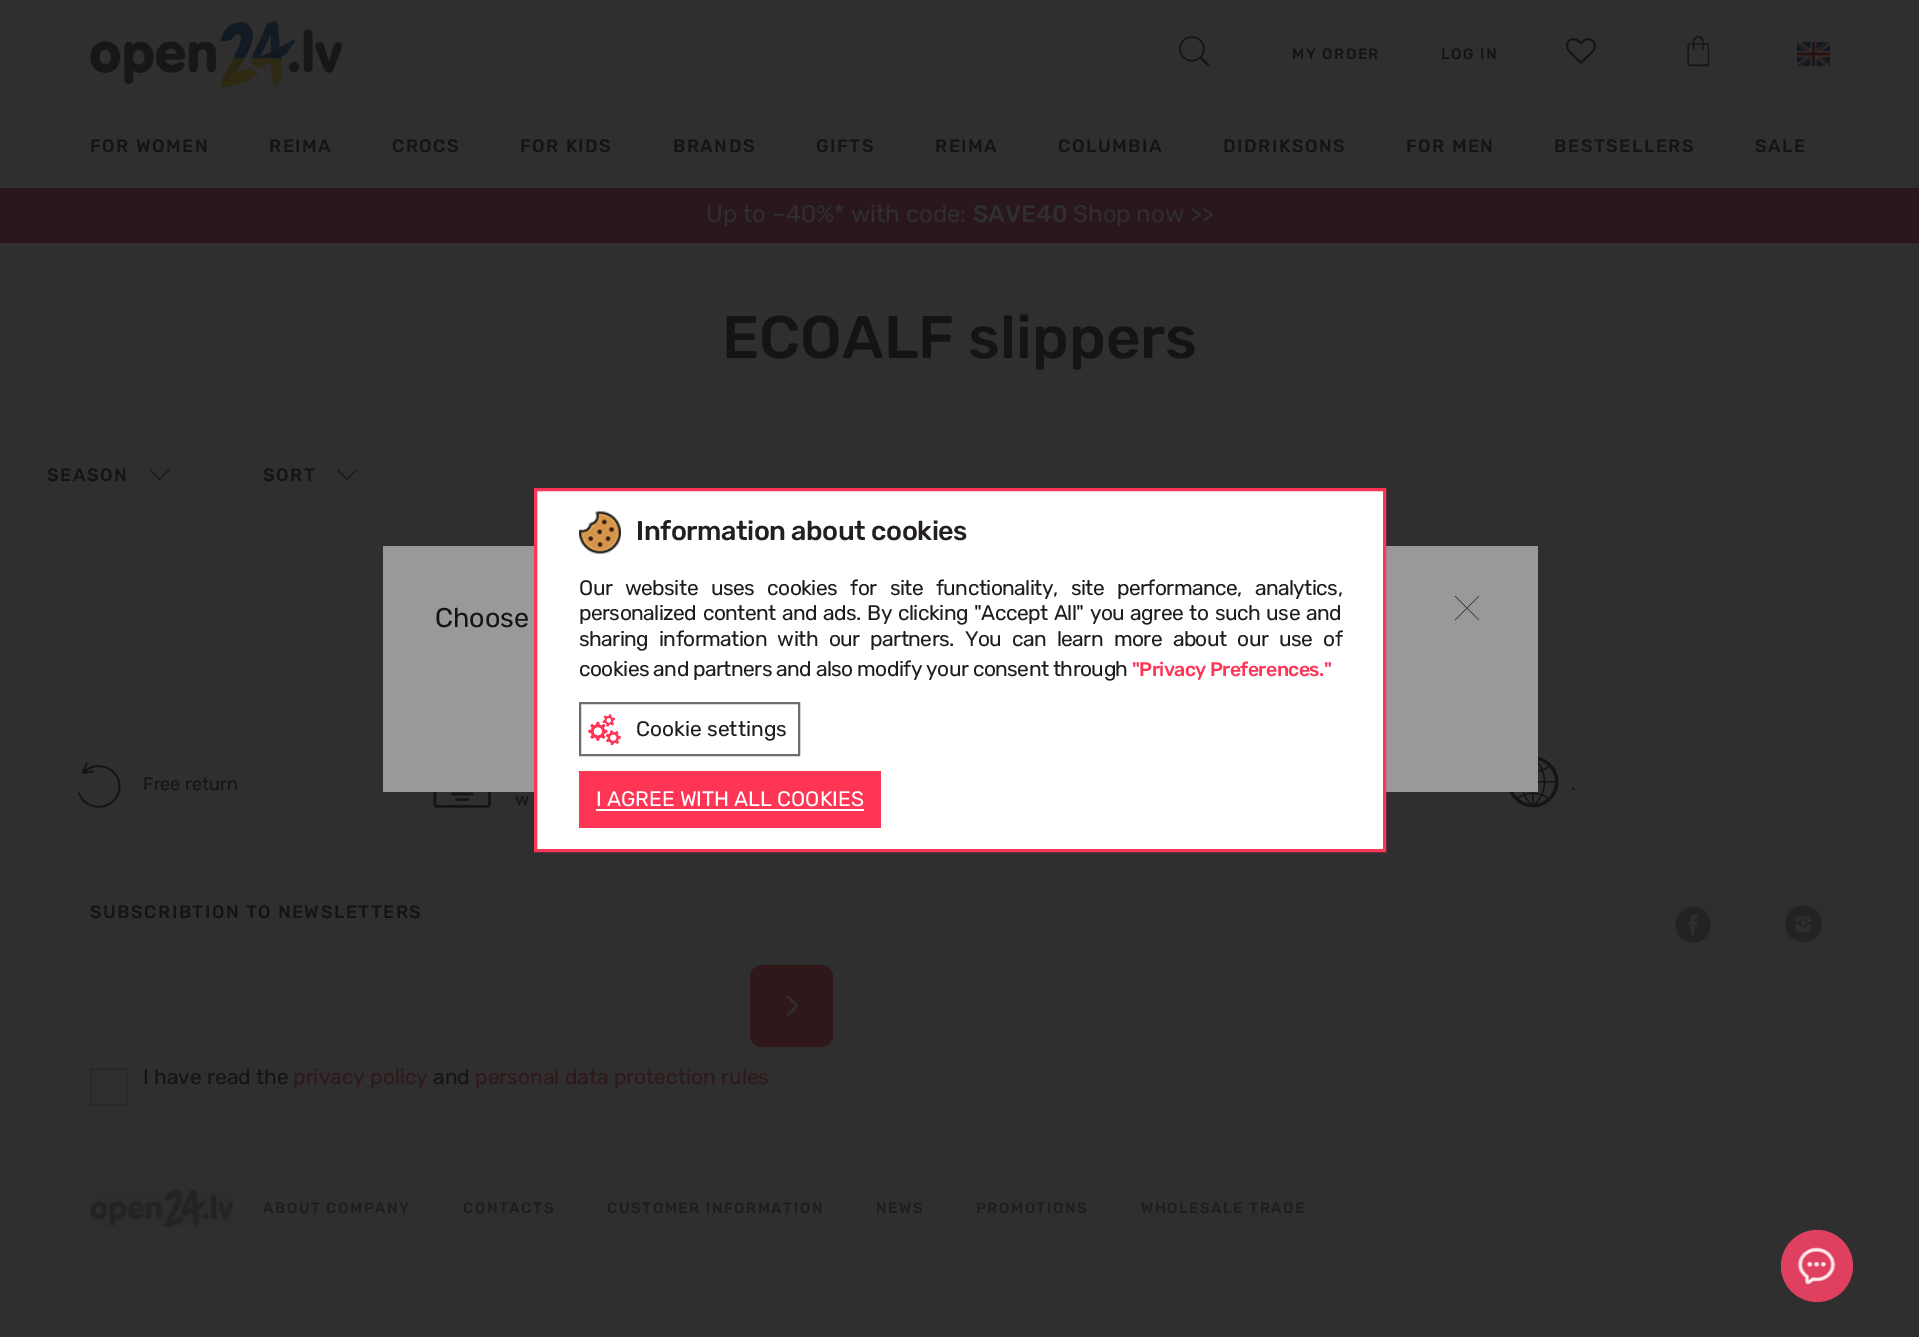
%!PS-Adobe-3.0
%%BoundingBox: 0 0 1919 1337
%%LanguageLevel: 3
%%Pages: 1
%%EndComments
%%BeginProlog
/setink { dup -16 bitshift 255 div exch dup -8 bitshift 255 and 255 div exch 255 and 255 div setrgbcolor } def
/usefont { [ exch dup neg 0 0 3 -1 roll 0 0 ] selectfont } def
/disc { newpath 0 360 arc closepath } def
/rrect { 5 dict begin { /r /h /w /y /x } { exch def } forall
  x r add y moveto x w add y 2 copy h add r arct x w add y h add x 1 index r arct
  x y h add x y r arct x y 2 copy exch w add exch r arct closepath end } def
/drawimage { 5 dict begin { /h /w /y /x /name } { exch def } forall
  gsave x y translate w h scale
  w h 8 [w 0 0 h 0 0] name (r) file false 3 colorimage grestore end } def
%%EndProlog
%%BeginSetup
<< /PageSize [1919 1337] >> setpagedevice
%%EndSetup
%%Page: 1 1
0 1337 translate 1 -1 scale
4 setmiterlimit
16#2F2F2F setink
0 0 1919 1337 rectfill
(img1.raw) 90 20 252 67 drawimage
(img2.raw) 1179 36 31 31 drawimage
/Rubik-Medium 15 usefont
16#141414 setink
1292 59 moveto 1.5 0 (MY ORDER) ashow
1441 59 moveto 1.5 0 (LOG IN) ashow
(img3.raw) 1566 38 30 26 drawimage
(img4.raw) 1687 36 23 31 drawimage
(img5.raw) 1797 42 33 25 drawimage
/Rubik-Medium 18 usefont
90 152 moveto 1.5 0 (FOR WOMEN) ashow
269 152 moveto 1.5 0 (REIMA) ashow
392 152 moveto 1.5 0 (CROCS) ashow
520 152 moveto 1.5 0 (FOR KIDS) ashow
673 152 moveto 1.5 0 (BRANDS) ashow
816 152 moveto 1.5 0 (GIFTS) ashow
935 152 moveto 1.5 0 (REIMA) ashow
1058 152 moveto 1.5 0 (COLUMBIA) ashow
1223 152 moveto 1.5 0 (DIDRIKSONS) ashow
1406 152 moveto 1.5 0 (FOR MEN) ashow
1554 152 moveto 1.5 0 (BESTSELLERS) ashow
1755 152 moveto 1.5 0 (SALE) ashow
16#29161F setink
0 188 1919 55 rectfill
/Rubik-Light 24 usefont
16#2F2F2F setink
706 222 moveto (Up to –40%* with code:) show
/Rubik-Medium 24 usefont
973 222 moveto (SAVE40) show
/Rubik-Light 24 usefont
1073 222 moveto (Shop now >>) show
/Rubik-Medium 60 usefont
16#141414 setink
722 358 moveto (ECOALF slippers) show
/Rubik-Medium 18 usefont
47 481 moveto 1.5 0 (SEASON) ashow
(img6.raw) 150 469 20 12 drawimage
263 481 moveto 1.5 0 (SORT) ashow
(img7.raw) 337 469 20 12 drawimage
(img8.raw) 78 762 43 46 drawimage
/Rubik-Light 18 usefont
143 790 moveto (Free return) show
(img9.raw) 1509 756 50 52 drawimage
1571 790 moveto (.) show
(img10.raw) 433 792 58 16 drawimage
515 805 moveto (w) show
/Rubik-Medium 18 usefont
90 918 moveto 1.5 0 (SUBSCRIBTION TO NEWSLETTERS) ashow
16#2F171A setink
750 965 83 82 12 rrect fill
(img11.raw) 786 995 12 22 drawimage
16#292929 setink
2 setlinewidth
91 1069 36 36 rectstroke
/Rubik-Light 21 usefont
16#141414 setink
143 1084 moveto (I have read the) show
16#2F171A setink
293 1084 moveto (privacy policy) show
16#141414 setink
433 1084 moveto (and) show
16#2F171A setink
475 1084 moveto (personal data protection rules) show
(img12.raw) 1675 906 36 37 drawimage
(img13.raw) 1785 905 37 38 drawimage
16#2C2C2C setink
90 1140 1740 2 rectfill
(img14.raw) 90 1189 143 38 drawimage
/Rubik-Medium 15 usefont
16#1D1D1D setink
263 1213 moveto 1.5 0 (ABOUT COMPANY) ashow
463 1213 moveto 1.5 0 (CONTACTS) ashow
607 1213 moveto 1.5 0 (CUSTOMER INFORMATION) ashow
876 1213 moveto 1.5 0 (NEWS) ashow
976 1213 moveto 1.5 0 (PROMOTIONS) ashow
1141 1213 moveto 1.5 0 (WHOLESALE TRADE) ashow
16#999999 setink
383 546 1155 246 rectfill
16#FFFFFF setink
535.5 489.5 moveto 1384.5 489.5 lineto 1384.5 850.5 lineto 535.5 850.5 lineto closepath gsave fill grestore
16#FF3556 setink
3 setlinewidth
stroke
(img15.raw) 579 511 42 43 drawimage
/Rubik-Medium 27 usefont
16#231F20 setink
636 540 moveto -0.45 0 (Information about cookies) ashow
/Rubik-Light 21 usefont
16#1D1D1D setink
579 595 moveto 8.5 0 32 -0.6 0 (Our website uses cookies for site functionality, site performance, analytics,) awidthshow
579 620 moveto 1.75 0 32 -0.6 0 (personalized content and ads. By clicking "Accept All" you agree to such use and) awidthshow
579 646 moveto 6.25 0 32 -0.6 0 (sharing information with our partners. You can learn more about our use of) awidthshow
579 676 moveto -0.6 0 (cookies and partners and also modify your consent through) ashow
/Rubik-Medium 19.5 usefont
16#FF3556 setink
1132 676 moveto -0.6 0 ("Privacy Preferences.") ashow
16#6E6D6D setink
2 setlinewidth
580 703 219 52 rectstroke
(img16.raw) 588 714 33 32 drawimage
/Rubik-Light 21 usefont
16#1D1D1D setink
636 736 moveto (Cookie settings) show
16#FF3556 setink
579 771 302 57 rectfill
16#FFFFFF setink
596 806 moveto (I AGREE WITH ALL COOKIES) show
596 809 268 2 rectfill
/Rubik-Light 27 usefont
16#141414 setink
435 627 moveto (Choose) show
(img17.raw) 1455 596 24 25 drawimage
16#E04060 setink
1817 1266 36 disc fill
(img18.raw) 1797 1247 39 38 drawimage
showpage
%%EOF
